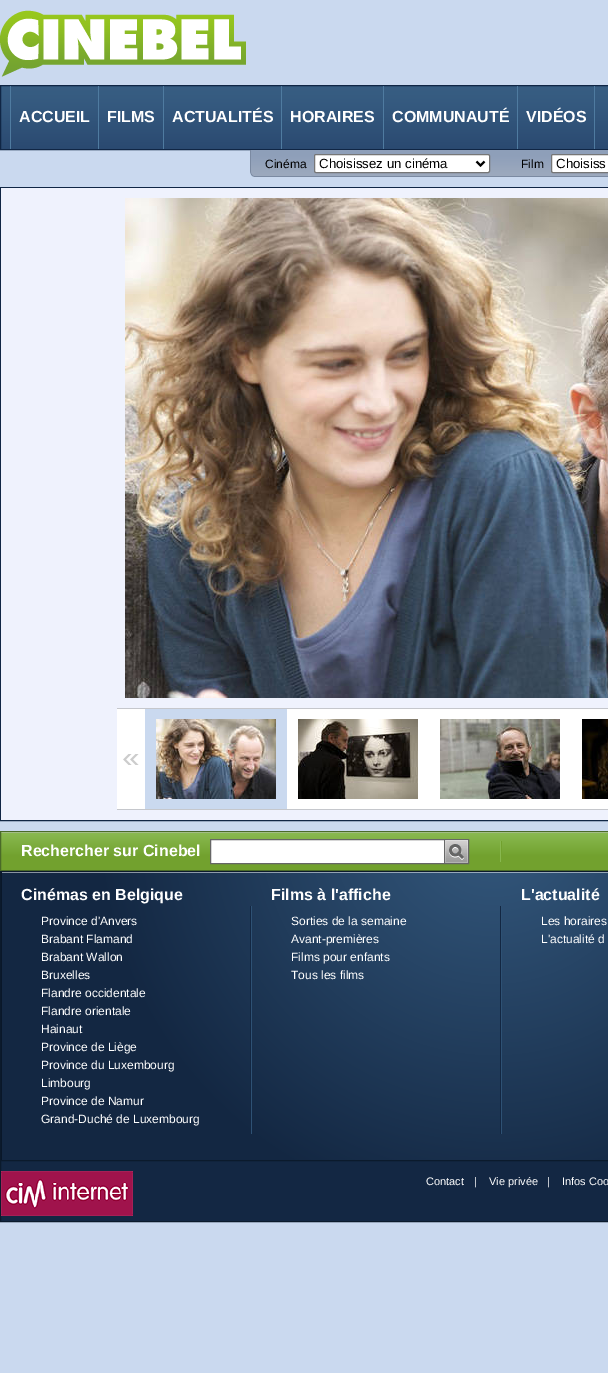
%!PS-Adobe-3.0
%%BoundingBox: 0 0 608 1373
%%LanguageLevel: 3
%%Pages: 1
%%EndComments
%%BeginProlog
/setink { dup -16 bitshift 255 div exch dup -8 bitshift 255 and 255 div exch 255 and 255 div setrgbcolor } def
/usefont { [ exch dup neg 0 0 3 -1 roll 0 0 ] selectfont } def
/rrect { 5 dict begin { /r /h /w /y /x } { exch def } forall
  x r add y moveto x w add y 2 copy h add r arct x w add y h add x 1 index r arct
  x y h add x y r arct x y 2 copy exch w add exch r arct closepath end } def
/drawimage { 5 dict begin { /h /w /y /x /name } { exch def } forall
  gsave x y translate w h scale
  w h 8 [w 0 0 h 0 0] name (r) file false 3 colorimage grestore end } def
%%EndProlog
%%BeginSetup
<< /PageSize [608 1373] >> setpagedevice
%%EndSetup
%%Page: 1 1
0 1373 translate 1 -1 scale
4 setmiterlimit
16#CAD9EF setink
0 0 608 1373 rectfill
(img1.raw) 0 10 246 67 drawimage
(img2.raw) 1 86 607 63 drawimage
16#102645 setink
0.5 85.5 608 64 rectstroke
16#4F7BA0 setink
98 86 1 63 rectfill
10 86 1 63 rectfill
/LiberationSans-Bold 16 usefont
16#FFFFFF setink
19 122 moveto (ACCUEIL) show
16#4F7BA0 setink
163 86 1 63 rectfill
16#FFFFFF setink
107 122 moveto (FILMS) show
16#4F7BA0 setink
281 86 1 63 rectfill
16#FFFFFF setink
172 122 moveto (ACTUALITÉS) show
16#4F7BA0 setink
383 86 1 63 rectfill
16#FFFFFF setink
290 122 moveto (HORAIRES) show
16#4F7BA0 setink
517 86 1 63 rectfill
16#FFFFFF setink
392 122 moveto (COMMUNAUTÉ) show
16#4F7BA0 setink
594 86 1 63 rectfill
16#FFFFFF setink
526 122 moveto (VIDÉOS) show
(img3.raw) 250 150 250 27 drawimage
/LiberationSans-Regular 12 usefont
16#000000 setink
265 168 moveto (Cinéma) show
16#FFFFFF setink
314.5 154.5 175 18 1.5 rrect gsave fill grestore
16#767676 setink
stroke
16#000000 setink
2 setlinewidth
476.5 161.5 moveto 480.5 165.5 lineto 484.5 161.5 lineto stroke
/LiberationSans-Regular 13.25 usefont
319 168 moveto (Choisissez un cinéma) show
(img4.raw) 500 150 108 27 drawimage
/LiberationSans-Regular 12 usefont
521 168 moveto (Film) show
16#FFFFFF setink
551.5 154.5 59 18 1.5 rrect gsave fill grestore
16#767676 setink
1 setlinewidth
stroke
/LiberationSans-Regular 13.25 usefont
16#000000 setink
556 168 moveto (Choisiss) show
16#102645 setink
0.5 187.5 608 633 rectstroke
16#EFF2FD setink
1 188 607 632 rectfill
(img5.raw) 125 198 483 500 drawimage
[
    [117 709 491 100 16#FFFFFF]
    [117 708 491 1 16#C5C7CC]
    [117 809 491 1 16#C5C7CC]
] { aload pop setink rectfill } forall
(img6.raw) 123 752 16 14 drawimage
16#CAD9EF setink
145 709 142 100 rectfill
(img7.raw) 156 719 120 80 drawimage
(img8.raw) 298 719 120 80 drawimage
(img9.raw) 440 719 120 80 drawimage
(img10.raw) 582 719 26 80 drawimage
(img11.raw) 1 832 607 38 drawimage
16#4A6A28 setink
0.5 831.5 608 39 rectstroke
/LiberationSans-Bold 16 usefont
16#FFFFFF setink
21 856 moveto (Rechercher sur Cinebel) show
211 840 233 23 rectfill
16#666666 setink
210.5 839.5 258 24 rectstroke
(img12.raw) 444 840 24 23 drawimage
(img13.raw) 500 841 2 21 drawimage
(img14.raw) 1 872 607 288 drawimage
16#0B1A2C setink
0 871 608 1 rectfill
0 871 1 289 rectfill
16#FFFFFF setink
21 900 moveto (Cinémas en Belgique) show
/LiberationSans-Regular 12 usefont
[
    [(Province d'Anvers) 41 925]
    [(Brabant Flamand) 41 943]
    [(Brabant Wallon) 41 961]
    [(Bruxelles) 41 979]
    [(Flandre occidentale) 41 997]
    [(Flandre orientale) 41 1015]
    [(Hainaut) 41 1033]
    [(Province de Liège) 41 1051]
    [(Province du Luxembourg) 41 1069]
    [(Limbourg) 41 1087]
    [(Province de Namur) 41 1105]
    [(Grand-Duché de Luxembourg) 41 1123]
] { aload pop moveto show } forall
/LiberationSans-Bold 16 usefont
271 900 moveto (Films à l'affiche) show
/LiberationSans-Regular 12 usefont
[
    [(Sorties de la semaine) 291 925]
    [(Avant-premières) 291 943]
    [(Films pour enfants) 291 961]
    [(Tous les films) 291 979]
] { aload pop moveto show } forall
/LiberationSans-Bold 16 usefont
521 900 moveto (L'actualité) show
/LiberationSans-Regular 12 usefont
541 925 moveto (Les horaires) show
541 943 moveto (L'actualité d) show
16#132743 setink
0.5 1160.5 moveto 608.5 1160.5 lineto 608.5 1221.5 lineto 0.5 1221.5 lineto closepath gsave fill grestore
16#0B1A2C setink
stroke
(img15.raw) 1 1171 132 45 drawimage
/LiberationSans-Regular 11 usefont
16#FFFFFF setink
[
    [(Contact) 426 1185]
    [(|) 474 1185]
    [(Vie privée) 489 1185]
    [(|) 547 1185]
    [(Infos Coo) 562 1185]
] { aload pop moveto show } forall
showpage
%%EOF
